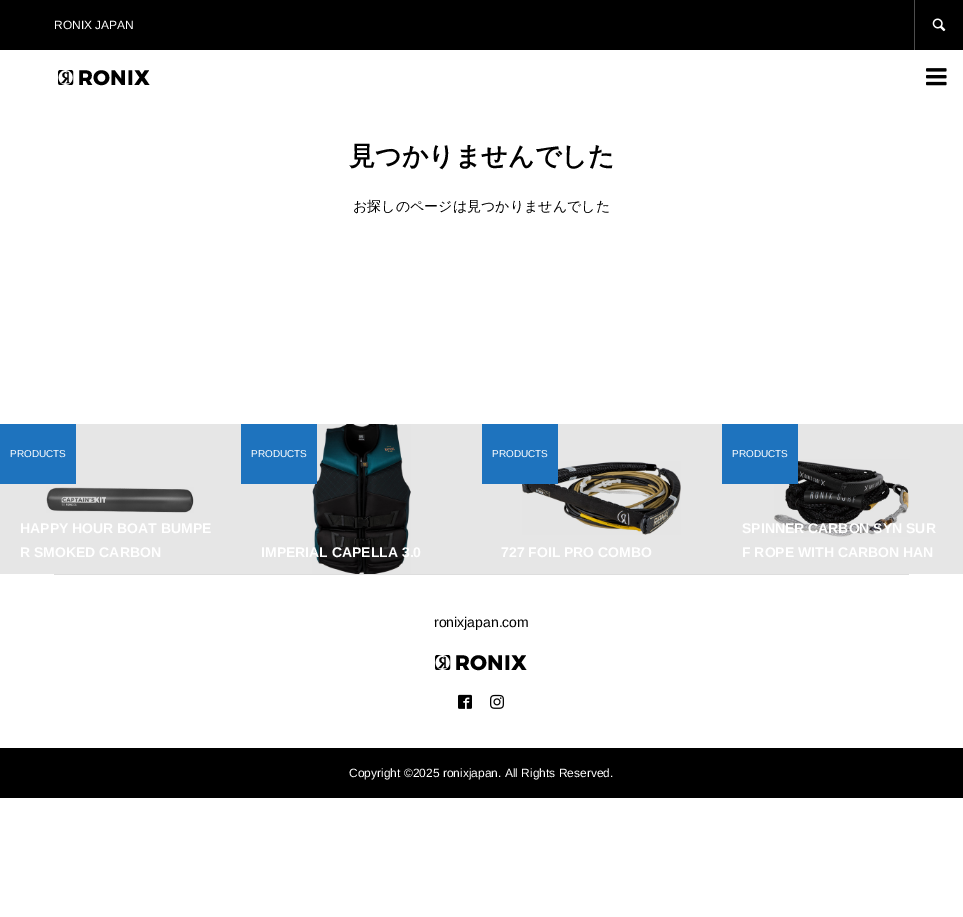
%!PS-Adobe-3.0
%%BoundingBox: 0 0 963 917
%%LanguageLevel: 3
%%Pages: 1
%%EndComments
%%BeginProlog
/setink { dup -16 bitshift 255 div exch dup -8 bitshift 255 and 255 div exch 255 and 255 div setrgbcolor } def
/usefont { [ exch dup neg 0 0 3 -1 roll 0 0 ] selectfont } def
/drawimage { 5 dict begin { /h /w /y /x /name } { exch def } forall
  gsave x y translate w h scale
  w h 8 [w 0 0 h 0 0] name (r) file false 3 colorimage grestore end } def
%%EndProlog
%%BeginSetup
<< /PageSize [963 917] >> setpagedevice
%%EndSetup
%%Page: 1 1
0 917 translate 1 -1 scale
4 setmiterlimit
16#FFFFFF setink
0 0 963 917 rectfill
16#E6E6E6 setink
0 424 963 150 rectfill
16#000000 setink
0 0 963 50 rectfill
/LiberationSans-Regular 12 usefont
16#FFFFFF setink
54 29 moveto (RONIX JAPAN) show
16#4D4D4D setink
914 0 1 50 rectfill
(img1.raw) 932 18 14 14 drawimage
(img2.raw) 58 70 92 16 drawimage
(img3.raw) 926 68 21 18 drawimage
/WenQuanYiZenHei-Bold 26 usefont
16#000000 setink
349 165 moveto (見つかりませんでした) show
/WenQuanYiZenHei-Medium 14 usefont
353 211 moveto (お探しのページは見つかりませんでした) show
16#1E73BE setink
0 424 76 60 rectfill
/LiberationSans-Regular 10 usefont
16#FFFFFF setink
10 457 moveto (PRODUCTS) show
(img4.raw) 46 487 148 26 drawimage
/LiberationSans-Bold 14 usefont
20 533 moveto (HAPPY HOUR BOAT BUMPE) show
20 557 moveto (R SMOKED CARBON) show
(img5.raw) 312 424 99 150 drawimage
16#1E73BE setink
241 424 76 60 rectfill
/LiberationSans-Regular 10 usefont
16#FFFFFF setink
251 457 moveto (PRODUCTS) show
/LiberationSans-Bold 14 usefont
261 557 moveto (IMPERIAL CAPELLA 3.0) show
(img6.raw) 522 461 159 74 drawimage
16#1E73BE setink
482 424 76 60 rectfill
/LiberationSans-Regular 10 usefont
16#FFFFFF setink
492 457 moveto (PRODUCTS) show
/LiberationSans-Bold 14 usefont
501 557 moveto (727 FOIL PRO COMBO) show
(img7.raw) 774 459 136 78 drawimage
16#1E73BE setink
722 424 76 60 rectfill
/LiberationSans-Regular 10 usefont
16#FFFFFF setink
732 457 moveto (PRODUCTS) show
/LiberationSans-Bold 14 usefont
742 533 moveto (SPINNER CARBON SYN SUR) show
742 557 moveto (F ROPE WITH CARBON HAN) show
16#DDDDDD setink
54 574 855 1 rectfill
/LiberationSans-Regular 14 usefont
16#000000 setink
434 627 moveto (ronixjapan.com) show
(img2.raw) 435 655 92 16 drawimage
(img8.raw) 458 694 14 15 drawimage
(img9.raw) 490 694 14 15 drawimage
0 748 963 50 rectfill
/LiberationSans-Regular 12 usefont
16#FFFFFF setink
349 777 moveto (Copyright ©2025 ronixjapan. All Rights Reserved.) show
showpage
%%EOF
